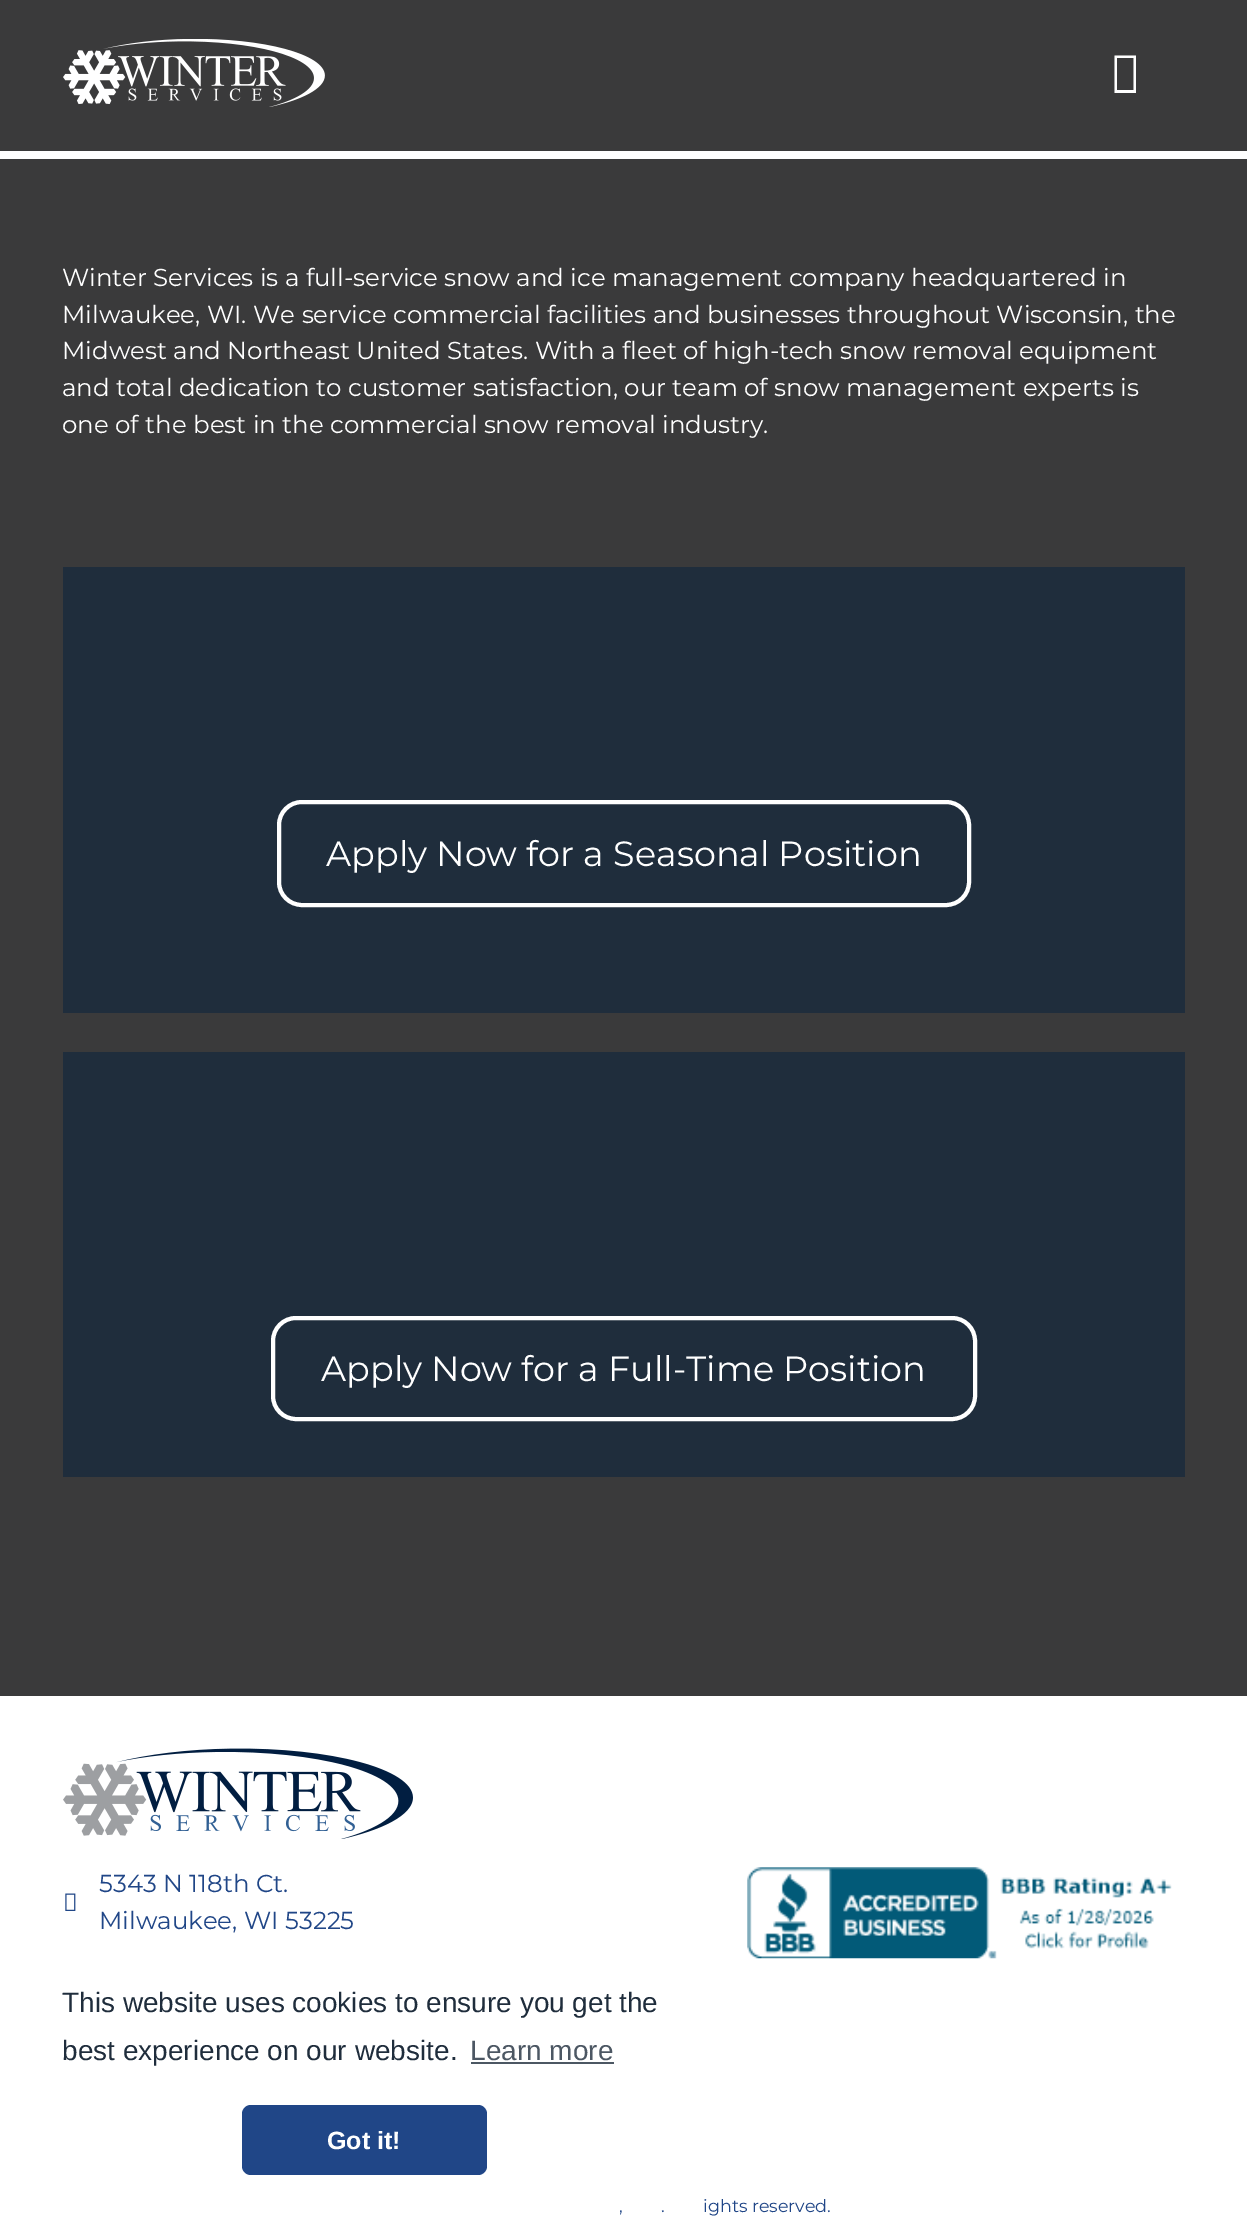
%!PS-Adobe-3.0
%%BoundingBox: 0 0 1247 2235
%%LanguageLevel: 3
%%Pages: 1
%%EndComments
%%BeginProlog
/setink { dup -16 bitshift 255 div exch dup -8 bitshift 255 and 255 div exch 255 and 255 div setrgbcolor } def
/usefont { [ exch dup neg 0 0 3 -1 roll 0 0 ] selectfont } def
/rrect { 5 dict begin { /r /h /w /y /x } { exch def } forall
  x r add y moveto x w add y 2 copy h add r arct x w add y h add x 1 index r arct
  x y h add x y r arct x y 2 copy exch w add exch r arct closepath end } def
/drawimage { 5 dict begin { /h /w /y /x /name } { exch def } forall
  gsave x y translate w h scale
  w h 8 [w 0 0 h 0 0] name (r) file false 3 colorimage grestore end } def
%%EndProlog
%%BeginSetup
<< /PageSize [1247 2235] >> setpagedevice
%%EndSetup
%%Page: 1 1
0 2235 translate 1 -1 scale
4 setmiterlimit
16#3A3A3B setink
0 0 1247 2235 rectfill
16#FFFFFF setink
0 151 1247 8 rectfill
(img1.raw) 63 39 262 68 drawimage
1114.5 93 moveto 1114.5 55.5 lineto 1136 55.5 lineto 1136 93 lineto closepath 1117 90 moveto 1133.5 90 lineto 1133.5 58 lineto 1117 58 lineto closepath fill
/Montserrat-Regular 24.5 usefont
[
    [(Winter Services is a full-service snow and ice management company headquartered in) 62 286]
    [(Milwaukee, WI. We service commercial facilities and businesses throughout Wisconsin, the) 62 323]
    [(Midwest and Northeast United States. With a fleet of high-tech snow removal equipment) 62 359]
    [(and total dedication to customer satisfaction, our team of snow management experts is) 62 396]
    [(one of the best in the commercial snow removal industry.) 62 433]
] { aload pop moveto show } forall
16#1F2D3C setink
63 567 1122 446 rectfill
16#FFFFFF setink
4 setlinewidth
279 802 690 103 23 rrect stroke
/Montserrat-Regular 35 usefont
326 866 moveto (Apply Now for a Seasonal Position) show
16#1F2D3C setink
63 1052 1122 425 rectfill
16#FFFFFF setink
273 1318 702 101 23 rrect stroke
321 1381 moveto (Apply Now for a Full-Time Position) show
0 1696 1247 539 rectfill
(img2.raw) 63 1748 350 91 drawimage
/Montserrat-Regular 24.5 usefont
16#204687 setink
99 1892 moveto (5343 N 118th Ct.) show
(img3.raw) 65 1893 11 18 drawimage
99 1929 moveto (Milwaukee, WI 53225) show
(img4.raw) 747 1867 425 92 drawimage
/Montserrat-Regular 17.5 usefont
[
    [(,) 619 2212]
    [(.) 661 2212]
    [(ights reserved.) 703 2212]
] { aload pop moveto show } forall
/LiberationSans-Regular 28 usefont
16#1F2D3C setink
62 2012 moveto (This website uses cookies to ensure you get the) show
62 2060 moveto (best experience on our website.) show
16#4C5763 setink
470 2060 moveto (Learn more) show
471 2062 143 2 rectfill
16#204687 setink
242 2105 245 70 9 rrect fill
/LiberationSans-Bold 25 usefont
16#FFFFFF setink
327 2149 moveto (Got it!) show
showpage
%%EOF
